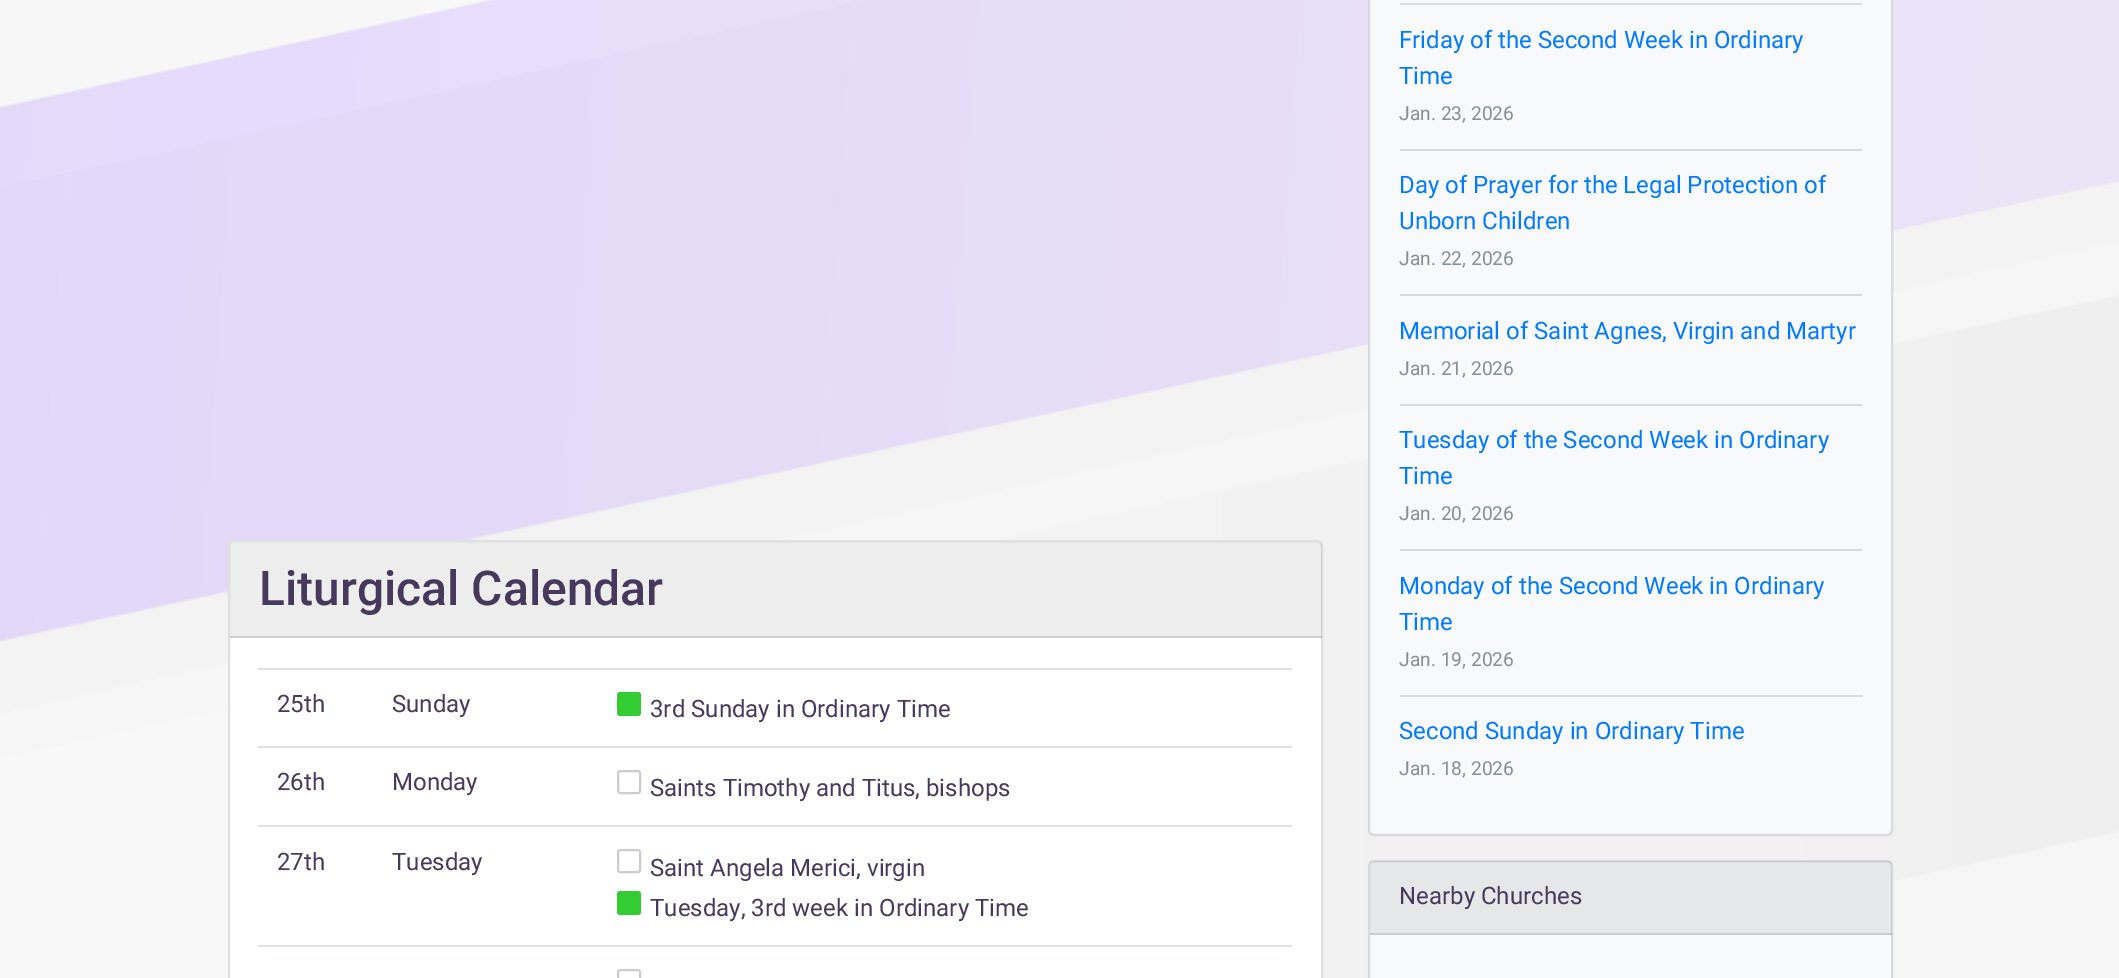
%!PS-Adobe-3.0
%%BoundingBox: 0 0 2119 978
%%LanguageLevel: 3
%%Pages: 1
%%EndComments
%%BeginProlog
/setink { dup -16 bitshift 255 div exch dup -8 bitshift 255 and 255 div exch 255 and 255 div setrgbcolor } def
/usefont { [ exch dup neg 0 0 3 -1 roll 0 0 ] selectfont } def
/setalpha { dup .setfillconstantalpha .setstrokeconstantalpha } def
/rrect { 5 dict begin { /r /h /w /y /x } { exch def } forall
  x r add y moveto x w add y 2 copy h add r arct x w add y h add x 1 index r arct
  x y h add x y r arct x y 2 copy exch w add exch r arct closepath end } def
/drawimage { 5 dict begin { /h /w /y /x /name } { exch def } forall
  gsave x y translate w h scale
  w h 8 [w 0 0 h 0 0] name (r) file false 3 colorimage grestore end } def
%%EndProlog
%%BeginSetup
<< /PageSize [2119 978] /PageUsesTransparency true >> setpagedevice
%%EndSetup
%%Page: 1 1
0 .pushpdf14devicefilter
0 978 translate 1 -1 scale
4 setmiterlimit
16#FFFFFF setink
0 0 2119 978 rectfill
(img1.raw) 0 0 2119 978 drawimage
228 540 1095 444 6 rrect fill
0.12 setalpha
16#000000 setink
2 setlinewidth
229 541 1093 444 5 rrect stroke
0.07 setalpha
235 542 moveto 1317 542 lineto 1320 542 1322 544 1322 547 curveto 1322 638 lineto 230 638 lineto 230 547 lineto 230 544 232 542 235 542 curveto closepath fill
0.12 setalpha
230 636 1092 2 rectfill
/Roboto-Medium 48 usefont
1 setalpha
16#46395B setink
259 605 moveto (Liturgical Calendar) show
/Roboto-Regular 24 usefont
277 712 moveto (25th) show
392 712 moveto (Sunday) show
16#DEE2E6 setink
258 668 1034 2 rectfill
16#33CC33 setink
617 692 24 24 3 rrect fill
16#46395B setink
[
    [(3rd Sunday in Ordinary Time) 650 717]
    [(26th) 277 790]
    [(Monday) 392 790]
] { aload pop moveto show } forall
16#DEE2E6 setink
258 746 1034 2 rectfill
16#CCCCCC setink
618 771 22 22 2 rrect stroke
16#46395B setink
[
    [(Saints Timothy and Titus, bishops) 650 796]
    [(27th) 277 870]
    [(Tuesday) 392 870]
] { aload pop moveto show } forall
16#DEE2E6 setink
258 825 1034 2 rectfill
16#CCCCCC setink
618 850 22 22 2 rrect stroke
16#46395B setink
650 876 moveto (Saint Angela Merici, virgin) show
16#33CC33 setink
617 891 24 24 3 rrect fill
16#46395B setink
650 916 moveto (Tuesday, 3rd week in Ordinary Time) show
16#DEE2E6 setink
258 945 1034 2 rectfill
16#CCCCCC setink
618 970 22 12 2 rrect stroke
16#F8F9FA setink
1369 -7 523 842 5 rrect gsave fill grestore
16#D9DADB setink
stroke
1400 3 462 2 rectfill
16#007BFF setink
1399 48 moveto (Friday of the Second Week in Ordinary) show
1399 84 moveto (Time) show
/Roboto-Regular 19.25 usefont
16#868E96 setink
1399 120 moveto (Jan. 23, 2026) show
16#D9DADB setink
1400 149 462 2 rectfill
/Roboto-Regular 24 usefont
16#007BFF setink
1399 193 moveto (Day of Prayer for the Legal Protection of) show
1399 229 moveto (Unborn Children) show
/Roboto-Regular 19.25 usefont
16#868E96 setink
1399 265 moveto (Jan. 22, 2026) show
16#D9DADB setink
1400 294 462 2 rectfill
/Roboto-Regular 24 usefont
16#007BFF setink
1399 339 moveto (Memorial of Saint Agnes, Virgin and Martyr) show
/Roboto-Regular 19.25 usefont
16#868E96 setink
1399 375 moveto (Jan. 21, 2026) show
16#D9DADB setink
1400 404 462 2 rectfill
/Roboto-Regular 24 usefont
16#007BFF setink
1399 448 moveto (Tuesday of the Second Week in Ordinary) show
1399 484 moveto (Time) show
/Roboto-Regular 19.25 usefont
16#868E96 setink
1399 520 moveto (Jan. 20, 2026) show
16#D9DADB setink
1400 549 462 2 rectfill
/Roboto-Regular 24 usefont
16#007BFF setink
1399 594 moveto (Monday of the Second Week in Ordinary) show
1399 630 moveto (Time) show
/Roboto-Regular 19.25 usefont
16#868E96 setink
1399 666 moveto (Jan. 19, 2026) show
16#D9DADB setink
1400 695 462 2 rectfill
/Roboto-Regular 24 usefont
16#007BFF setink
1399 739 moveto (Second Sunday in Ordinary Time) show
/Roboto-Regular 19.25 usefont
16#868E96 setink
1399 775 moveto (Jan. 18, 2026) show
16#F8F9FA setink
1369 861 523 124 5 rrect gsave fill grestore
16#D9DADB setink
stroke
0.07 setalpha
16#000000 setink
1375 861 moveto 1887 861 lineto 1890 861 1892 863 1892 866 curveto 1892 935 lineto 1370 935 lineto 1370 866 lineto 1370 863 1372 861 1375 861 curveto closepath fill
0.12 setalpha
1370 933 522 2 rectfill
/Roboto-Regular 24 usefont
1 setalpha
16#46395B setink
1399 904 moveto (Nearby Churches) show
.poppdf14devicefilter showpage
%%EOF
